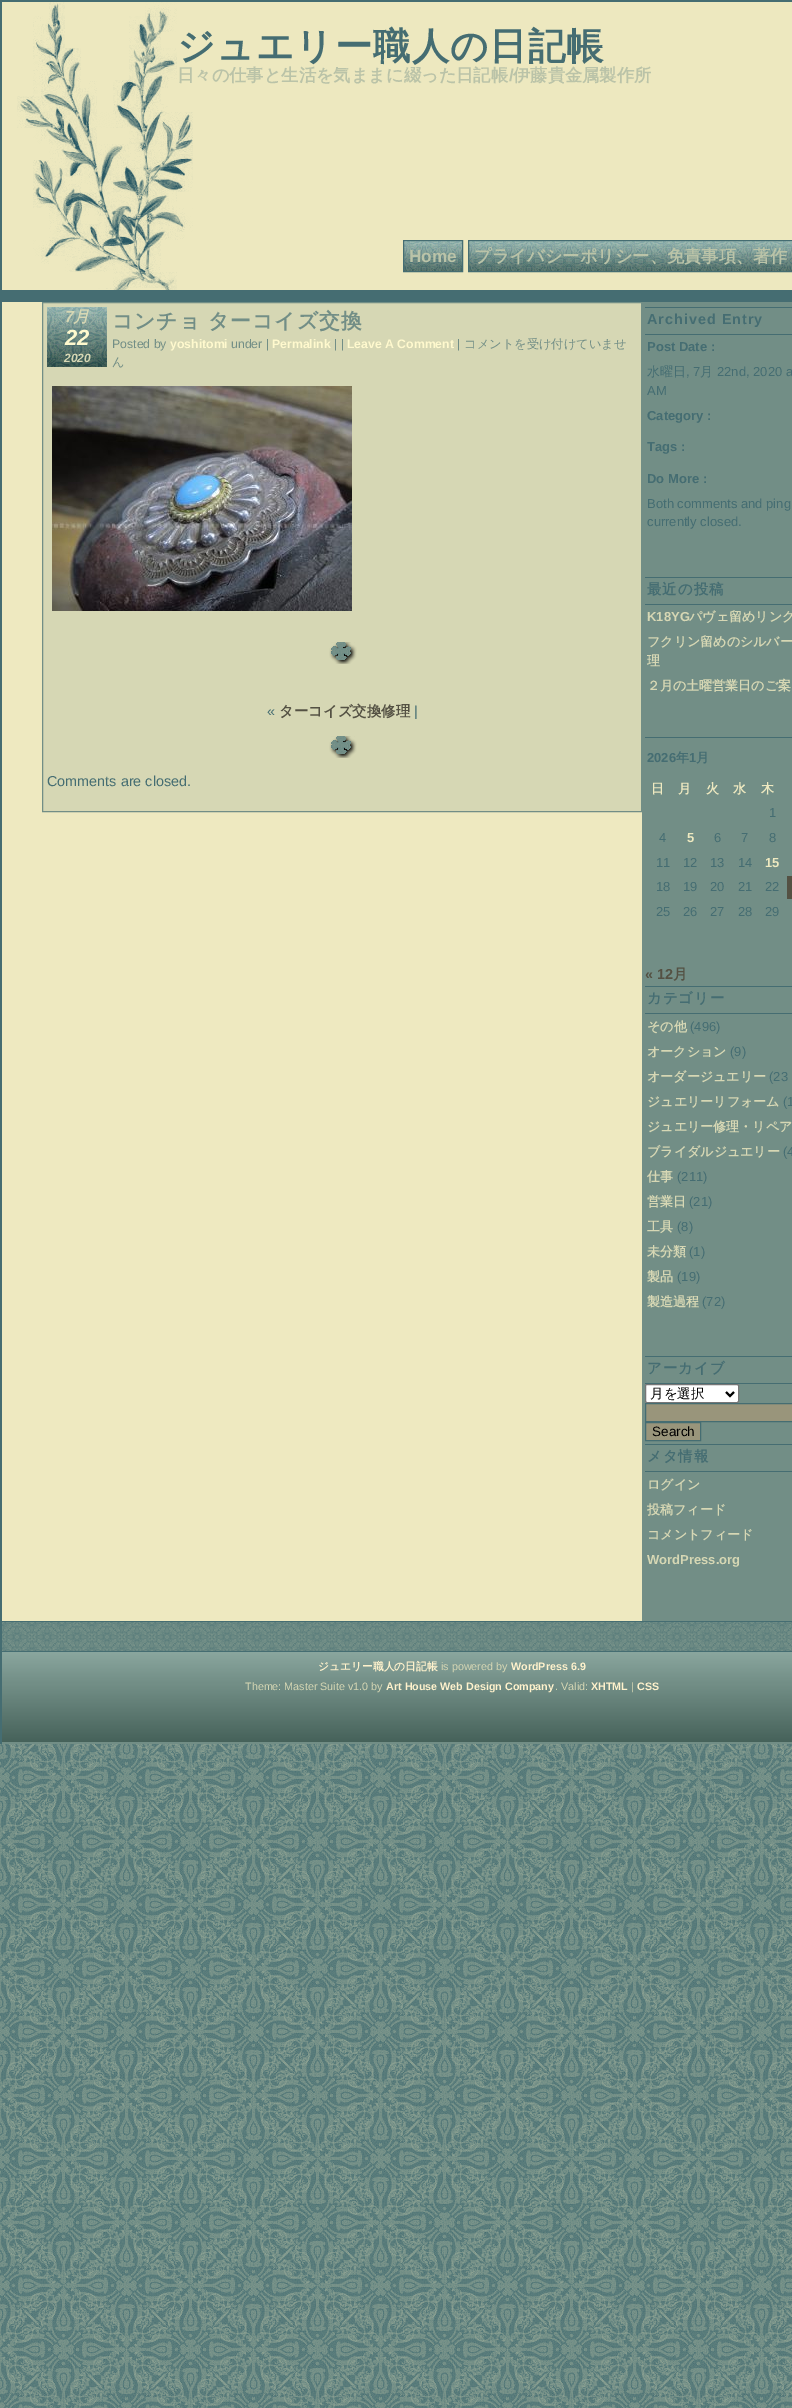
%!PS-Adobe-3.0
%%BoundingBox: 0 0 792 2408
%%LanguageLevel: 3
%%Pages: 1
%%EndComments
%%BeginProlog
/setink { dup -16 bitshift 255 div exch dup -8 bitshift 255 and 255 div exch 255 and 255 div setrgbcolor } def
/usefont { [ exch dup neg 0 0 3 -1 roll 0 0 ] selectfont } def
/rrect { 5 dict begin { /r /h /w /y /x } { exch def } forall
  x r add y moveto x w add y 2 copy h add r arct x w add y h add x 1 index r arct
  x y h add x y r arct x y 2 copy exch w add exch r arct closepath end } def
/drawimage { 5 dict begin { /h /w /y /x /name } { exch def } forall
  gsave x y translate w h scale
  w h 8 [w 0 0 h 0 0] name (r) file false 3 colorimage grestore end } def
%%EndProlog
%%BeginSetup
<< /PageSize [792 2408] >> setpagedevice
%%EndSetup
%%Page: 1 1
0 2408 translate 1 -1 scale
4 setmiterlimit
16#FFFFFF setink
0 0 792 2408 rectfill
(img1.raw) 0 1744 792 664 drawimage
(img2.raw) 2 2 790 300 drawimage
16#456D72 setink
0 0 792 2 rectfill
0 0 2 1744 rectfill
/WenQuanYiZenHei-Bold 37.5 usefont
177 59 moveto 1 0 (ジュエリー職人の日記帳) ashow
/WenQuanYiZenHei-Bold 17.25 usefont
16#BAC3A8 setink
177 81 moveto (日々の仕事と生活を気ままに綴った日記帳) show
/LiberationSans-Bold 17.25 usefont
509 81 moveto (/) show
/WenQuanYiZenHei-Bold 17.25 usefont
513 81 moveto (伊藤貴金属製作所) show
(img3.raw) 404 241 58 30 drawimage
(img4.raw) 469 241 323 30 drawimage
16#456D72 setink
403.5 240.5 59 31 rectstroke
/LiberationSans-Bold 17.25 usefont
16#BAC3A8 setink
409 262 moveto (Home) show
16#456D72 setink
468.5 240.5 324 31 rectstroke
/WenQuanYiZenHei-Bold 17.25 usefont
16#BAC3A8 setink
474 262 moveto (プライバシーポリシー、免責事項、著作) show
16#EEE9C0 setink
2 302 640 1319 rectfill
16#D6D7B4 setink
42.5 302.5 moveto 641.5 302.5 lineto 641.5 811.5 lineto 42.5 811.5 lineto closepath gsave fill grestore
16#728E86 setink
stroke
(img5.raw) 47 307 60 60 drawimage
/LiberationSans-BoldItalic 16 usefont
16#D6D7B4 setink
65 322 moveto (7) show
/WenQuanYiZenHei-BoldItalic 16 usefont
73 322 moveto (月) show
/LiberationSans-BoldItalic 22 usefont
16#FFF9CE setink
65 345 moveto (22) show
/LiberationSans-BoldItalic 12 usefont
16#D6D7B4 setink
64 362 moveto (2020) show
/WenQuanYiZenHei-Bold 20.75 usefont
16#728E86 setink
112 328 moveto 1 0 (コンチョ ターコイズ交換) ashow
/LiberationSans-Regular 12.25 usefont
112 348 moveto (Posted by) show
/LiberationSans-Bold 12.25 usefont
16#FFF9CE setink
170 348 moveto (yoshitomi) show
/LiberationSans-Regular 12.25 usefont
16#728E86 setink
231 348 moveto (under |) show
/LiberationSans-Bold 12.25 usefont
16#FFF9CE setink
272 348 moveto (Permalink) show
/LiberationSans-Regular 12.25 usefont
16#728E86 setink
334 348 moveto (| |) show
/LiberationSans-Bold 12.25 usefont
16#FFF9CE setink
347 348 moveto (Leave A Comment) show
/LiberationSans-Regular 12.25 usefont
16#728E86 setink
457 348 moveto (|) show
/WenQuanYiZenHei-Medium 12.25 usefont
464 348 moveto (コメントを受け付けていませ) show
112 366 moveto (ん) show
(img6.raw) 52 386 300 225 drawimage
(img7.raw) 329 642 28 22 drawimage
/LiberationSans-Regular 14.4 usefont
16#456D72 setink
267 716 moveto («) show
/WenQuanYiZenHei-Bold 14.4 usefont
16#545143 setink
279 716 moveto (ターコイズ交換修理) show
/LiberationSans-Regular 14.4 usefont
16#456D72 setink
414 716 moveto (|) show
(img7.raw) 329 736 28 22 drawimage
47 786 moveto (Comments are closed.) show
[
    [642 302 150 1319 16#728E86]
    [645 307 147 1 16#456D72]
    [645 334 147 1 16#456D72]
] { aload pop setink rectfill } forall
/LiberationSans-Bold 14.4 usefont
647 324 moveto 1 0 (Archived Entry) ashow
/LiberationSans-Bold 13 usefont
647 351 moveto (Post Date :) show
/WenQuanYiZenHei-Medium 13 usefont
647 376 moveto (水曜日) show
/LiberationSans-Regular 13 usefont
686 376 moveto (, 7) show
/WenQuanYiZenHei-Medium 13 usefont
700 376 moveto (月) show
/LiberationSans-Regular 13 usefont
717 376 moveto (22nd, 2020 a) show
647 395 moveto (AM) show
/LiberationSans-Bold 13 usefont
[
    [(Category :) 647 420]
    [(Tags :) 647 451]
    [(Do More :) 647 483]
] { aload pop moveto show } forall
/LiberationSans-Regular 13 usefont
647 508 moveto (Both comments and ping) show
647 526 moveto (currently closed.) show
645 577 147 1 rectfill
645 604 147 1 rectfill
/WenQuanYiZenHei-Bold 14.4 usefont
647 594 moveto 1 0 (最近の投稿) ashow
/LiberationSans-Bold 13 usefont
16#D6D7B4 setink
647 621 moveto (K18YG) show
/WenQuanYiZenHei-Bold 13 usefont
[
    [(パヴェ留めリング) 689 621]
    [(フクリン留めのシルバー) 647 646]
    [(理) 647 665]
    [(２月の土曜営業日のご案) 647 690]
] { aload pop moveto show } forall
16#456D72 setink
645 737 147 1 rectfill
/LiberationSans-Bold 13 usefont
647 762 moveto (2026) show
/WenQuanYiZenHei-Bold 13 usefont
676 762 moveto (年) show
/LiberationSans-Bold 13 usefont
689 762 moveto (1) show
/WenQuanYiZenHei-Bold 13 usefont
696 762 moveto (月) show
16#EEE9C0 setink
[
    [(日) 651 793]
    [(月) 678 793]
    [(火) 706 793]
    [(水) 733 793]
    [(木) 761 793]
] { aload pop moveto show } forall
/LiberationSans-Regular 13 usefont
16#456D72 setink
769 817 moveto (1) show
659 842 moveto (4) show
/LiberationSans-Bold 13 usefont
16#EEE9C0 setink
687 842 moveto (5) show
/LiberationSans-Regular 13 usefont
16#456D72 setink
[
    [(6) 714 842]
    [(7) 741 842]
    [(8) 769 842]
    [(11) 656 867]
    [(12) 683 867]
    [(13) 710 867]
    [(14) 738 867]
] { aload pop moveto show } forall
/LiberationSans-Bold 13 usefont
16#EEE9C0 setink
765 867 moveto (15) show
/LiberationSans-Regular 13 usefont
16#456D72 setink
[
    [(18) 656 891]
    [(19) 683 891]
    [(20) 710 891]
    [(21) 738 891]
    [(22) 765 891]
] { aload pop moveto show } forall
16#545143 setink
787 876 5 23 rectfill
16#456D72 setink
[
    [(25) 656 916]
    [(26) 683 916]
    [(27) 710 916]
    [(28) 738 916]
    [(29) 765 916]
] { aload pop moveto show } forall
/LiberationSans-Bold 14.4 usefont
16#545143 setink
645 979 moveto (« 12) show
/WenQuanYiZenHei-Bold 14.4 usefont
673 979 moveto (月) show
16#456D72 setink
645 986 147 1 rectfill
645 1013 147 1 rectfill
647 1003 moveto 1 0 (カテゴリー) ashow
/WenQuanYiZenHei-Bold 13 usefont
16#D6D7B4 setink
647 1031 moveto (その他) show
/LiberationSans-Regular 13 usefont
16#456D72 setink
690 1031 moveto (\(496\)) show
/WenQuanYiZenHei-Bold 13 usefont
16#D6D7B4 setink
647 1056 moveto (オークション) show
/LiberationSans-Regular 13 usefont
16#456D72 setink
730 1056 moveto (\(9\)) show
/WenQuanYiZenHei-Bold 13 usefont
16#D6D7B4 setink
647 1081 moveto (オーダージュエリー) show
/LiberationSans-Regular 13 usefont
16#456D72 setink
769 1081 moveto (\(23) show
/WenQuanYiZenHei-Bold 13 usefont
16#D6D7B4 setink
647 1106 moveto (ジュエリーリフォーム) show
/LiberationSans-Regular 13 usefont
16#456D72 setink
783 1106 moveto (\(1) show
/WenQuanYiZenHei-Bold 13 usefont
16#D6D7B4 setink
647 1131 moveto (ジュエリー修理・リペア) show
647 1156 moveto (ブライダルジュエリー) show
/LiberationSans-Regular 13 usefont
16#456D72 setink
783 1156 moveto (\(4) show
/WenQuanYiZenHei-Bold 13 usefont
16#D6D7B4 setink
647 1181 moveto (仕事) show
/LiberationSans-Regular 13 usefont
16#456D72 setink
677 1181 moveto (\(211\)) show
/WenQuanYiZenHei-Bold 13 usefont
16#D6D7B4 setink
647 1206 moveto (営業日) show
/LiberationSans-Regular 13 usefont
16#456D72 setink
689 1206 moveto (\(21\)) show
/WenQuanYiZenHei-Bold 13 usefont
16#D6D7B4 setink
647 1231 moveto (工具) show
/LiberationSans-Regular 13 usefont
16#456D72 setink
677 1231 moveto (\(8\)) show
/WenQuanYiZenHei-Bold 13 usefont
16#D6D7B4 setink
647 1256 moveto (未分類) show
/LiberationSans-Regular 13 usefont
16#456D72 setink
689 1256 moveto (\(1\)) show
/WenQuanYiZenHei-Bold 13 usefont
16#D6D7B4 setink
647 1281 moveto (製品) show
/LiberationSans-Regular 13 usefont
16#456D72 setink
677 1281 moveto (\(19\)) show
/WenQuanYiZenHei-Bold 13 usefont
16#D6D7B4 setink
647 1306 moveto (製造過程) show
/LiberationSans-Regular 13 usefont
16#456D72 setink
702 1306 moveto (\(72\)) show
645 1356 147 1 rectfill
645 1383 147 1 rectfill
/WenQuanYiZenHei-Bold 14.4 usefont
647 1373 moveto 1 0 (アーカイブ) ashow
16#FFFFFF setink
645.5 1384.5 93 18 1.5 rrect gsave fill grestore
16#767676 setink
stroke
16#000000 setink
2 setlinewidth
726 1392 moveto 730 1396 lineto 734 1392 lineto stroke
/WenQuanYiZenHei-Medium 13.5 usefont
650 1398 moveto (月を選択) show
16#99957B setink
645.5 1403.5 moveto 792.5 1403.5 lineto 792.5 1421.5 lineto 645.5 1421.5 lineto closepath gsave fill grestore
16#456D72 setink
1 setlinewidth
stroke
16#99957B setink
645.5 1422.5 moveto 700.5 1422.5 lineto 700.5 1440.5 lineto 645.5 1440.5 lineto closepath gsave fill grestore
16#456D72 setink
stroke
/LiberationSans-Regular 13.5 usefont
16#000000 setink
652 1436 moveto (Search) show
16#456D72 setink
645 1444 147 1 rectfill
645 1471 147 1 rectfill
/WenQuanYiZenHei-Bold 14.4 usefont
647 1461 moveto 1 0 (メタ情報) ashow
/WenQuanYiZenHei-Bold 13 usefont
16#D6D7B4 setink
[
    [(ログイン) 647 1489]
    [(投稿フィード) 647 1514]
    [(コメントフィード) 647 1539]
] { aload pop moveto show } forall
/LiberationSans-Bold 13 usefont
647 1564 moveto (WordPress.org) show
16#728E86 setink
2 1742 790 2 rectfill
(img8.raw) 2 1622 790 120 drawimage
16#456D72 setink
2 1621 790 1 rectfill
/WenQuanYiZenHei-Bold 10.75 usefont
16#FFF2CC setink
318 1670 moveto (ジュエリー職人の日記帳) show
/LiberationSans-Regular 10.75 usefont
16#D6D7B4 setink
441 1670 moveto (is powered by) show
/LiberationSans-Bold 10.75 usefont
16#FFF2CC setink
511 1670 moveto (WordPress 6.9) show
/LiberationSans-Regular 10.75 usefont
16#D6D7B4 setink
245 1690 moveto (Theme: Master Suite v1.0 by) show
/LiberationSans-Bold 10.75 usefont
16#FFF2CC setink
386 1690 moveto (Art House Web Design Company) show
/LiberationSans-Regular 10.75 usefont
16#D6D7B4 setink
555 1690 moveto (. Valid:) show
/LiberationSans-Bold 10.75 usefont
16#FFF2CC setink
591 1690 moveto (XHTML) show
/LiberationSans-Regular 10.75 usefont
16#D6D7B4 setink
631 1690 moveto (|) show
/LiberationSans-Bold 10.75 usefont
16#FFF2CC setink
637 1690 moveto (CSS) show
showpage
%%EOF
